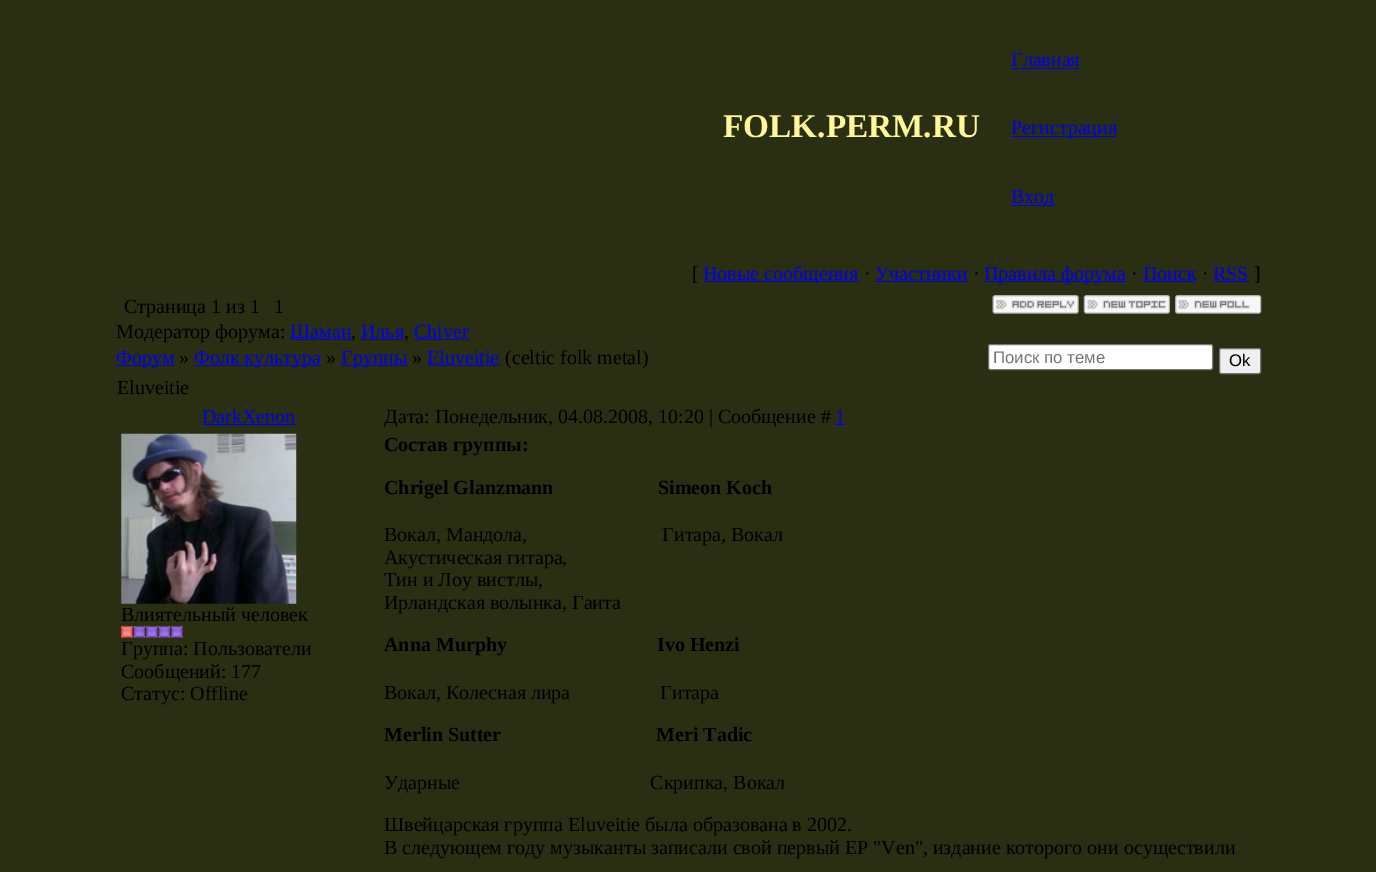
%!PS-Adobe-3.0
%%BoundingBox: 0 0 1376 872
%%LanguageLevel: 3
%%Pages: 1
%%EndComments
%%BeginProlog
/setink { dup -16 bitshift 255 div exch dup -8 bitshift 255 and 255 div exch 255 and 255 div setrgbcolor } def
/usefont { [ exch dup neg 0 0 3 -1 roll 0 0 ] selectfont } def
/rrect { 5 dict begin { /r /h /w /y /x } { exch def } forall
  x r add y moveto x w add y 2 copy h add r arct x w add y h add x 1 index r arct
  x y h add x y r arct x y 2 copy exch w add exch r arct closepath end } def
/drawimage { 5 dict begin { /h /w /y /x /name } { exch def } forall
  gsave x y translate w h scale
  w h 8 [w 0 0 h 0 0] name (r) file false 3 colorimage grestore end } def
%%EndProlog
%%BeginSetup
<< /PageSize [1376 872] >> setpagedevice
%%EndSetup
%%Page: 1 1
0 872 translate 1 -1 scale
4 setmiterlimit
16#2A2E12 setink
0 0 1376 872 rectfill
/LiberationSerif-Bold 33.25 usefont
16#FFF799 setink
723 137 moveto (FOLK.PERM.RU) show
/LiberationSerif-Regular 20 usefont
16#0000EE setink
1011 66 moveto (Главная) show
1011 68 68 1 rectfill
1011 136 105 1 rectfill
1011 134 moveto (Регистрация) show
1011 205 43 1 rectfill
1011 203 moveto (Вход) show
16#000000 setink
692 280 moveto ([) show
16#0000EE setink
704 281 155 1 rectfill
703 280 moveto (Новые сообщения) show
16#000000 setink
864 280 moveto (·) show
16#0000EE setink
875 280 moveto (Участники) show
875 281 93 1 rectfill
16#000000 setink
973 280 moveto (·) show
16#0000EE setink
985 281 141 1 rectfill
984 280 moveto (Правила форума) show
16#000000 setink
1131 280 moveto (·) show
16#0000EE setink
1143 280 moveto (Поиск) show
1143 281 53 1 rectfill
16#000000 setink
1202 280 moveto (·) show
16#0000EE setink
1213 280 moveto (RSS) show
1214 281 35 1 rectfill
16#000000 setink
[
    [(]) 1254 280]
    [(Страница 1 из 1) 124 313]
    [(1) 274 313]
] { aload pop moveto show } forall
(img1.raw) 992 295 87 19 drawimage
(img2.raw) 1083 295 87 19 drawimage
(img3.raw) 1175 295 87 19 drawimage
116 338 moveto (Модератор форума:) show
16#0000EE setink
290 338 moveto (Шаман) show
16#000000 setink
351 338 moveto (,) show
16#0000EE setink
290 339 61 1 rectfill
361 338 moveto (Илья) show
16#000000 setink
404 338 moveto (,) show
16#0000EE setink
361 339 43 1 rectfill
414 339 55 1 rectfill
414 338 moveto (Chiver) show
116 365 58 1 rectfill
116 364 moveto (Форум) show
16#000000 setink
179 364 moveto (») show
16#0000EE setink
194 365 127 1 rectfill
194 364 moveto (Фолк культура) show
16#000000 setink
326 364 moveto (») show
16#0000EE setink
341 365 67 1 rectfill
341 364 moveto (Группы) show
16#000000 setink
412 364 moveto (») show
16#0000EE setink
427 364 moveto (Eluveitie) show
428 365 72 1 rectfill
16#000000 setink
505 364 moveto (\(celtic folk metal\)) show
16#FFFFFF setink
988.5 344.5 224 25 2 rrect gsave fill grestore
16#767676 setink
stroke
/LiberationSans-Regular 16.75 usefont
16#757575 setink
993 363 moveto (Поиск по теме) show
16#EFEFEF setink
1219.5 348.5 41 25 2 rrect gsave fill grestore
16#767676 setink
stroke
16#000000 setink
1229 366 moveto (Ok) show
/LiberationSerif-Regular 20 usefont
117 394 moveto (Eluveitie) show
16#0000EE setink
202 423 moveto (DarkXenon) show
203 424 93 1 rectfill
16#000000 setink
384 423 moveto (Дата: Понедельник, 04.08.2008, 10:20 | Сообщение #) show
16#0000EE setink
835 423 moveto (1) show
835 424 10 1 rectfill
(img4.raw) 121 433 176 171 drawimage
16#000000 setink
121 621 moveto (Влиятельный человек) show
(img5.raw) 121 626 62 12 drawimage
[
    [(Группа: Пользователи) 121 655]
    [(Сообщений: 177) 121 678]
    [(Статус: Offline) 121 700]
] { aload pop moveto show } forall
/LiberationSerif-Bold 20 usefont
[
    [(Состав группы:) 384 451]
    [(Chrigel Glanzmann) 384 494]
    [(Simeon Koch) 658 494]
] { aload pop moveto show } forall
/LiberationSerif-Regular 20 usefont
[
    [(Вокал, Мандола,                           Гитара, Вокал) 384 541]
    [(Акустическая гитара,) 384 564]
    [(Тин и Лоу вистлы,) 384 586]
    [(Ирландская волынка, Гаита) 384 609]
] { aload pop moveto show } forall
/LiberationSerif-Bold 20 usefont
384 651 moveto (Anna Murphy) show
657 651 moveto (Ivo Henzi) show
/LiberationSerif-Regular 20 usefont
384 699 moveto (Вокал, Колесная лира                  Гитара) show
/LiberationSerif-Bold 20 usefont
384 741 moveto (Merlin Sutter) show
656 741 moveto (Meri Tadic) show
/LiberationSerif-Regular 20 usefont
[
    [(Ударные                                      Скрипка, Вокал) 384 789]
    [(Швейцарская группа Eluveitie была образована в 2002.) 384 831]
    [(В следующем году музыканты записали свой первый EP "Ven", издание которого они осуществили) 384 854]
] { aload pop moveto show } forall
showpage
%%EOF
